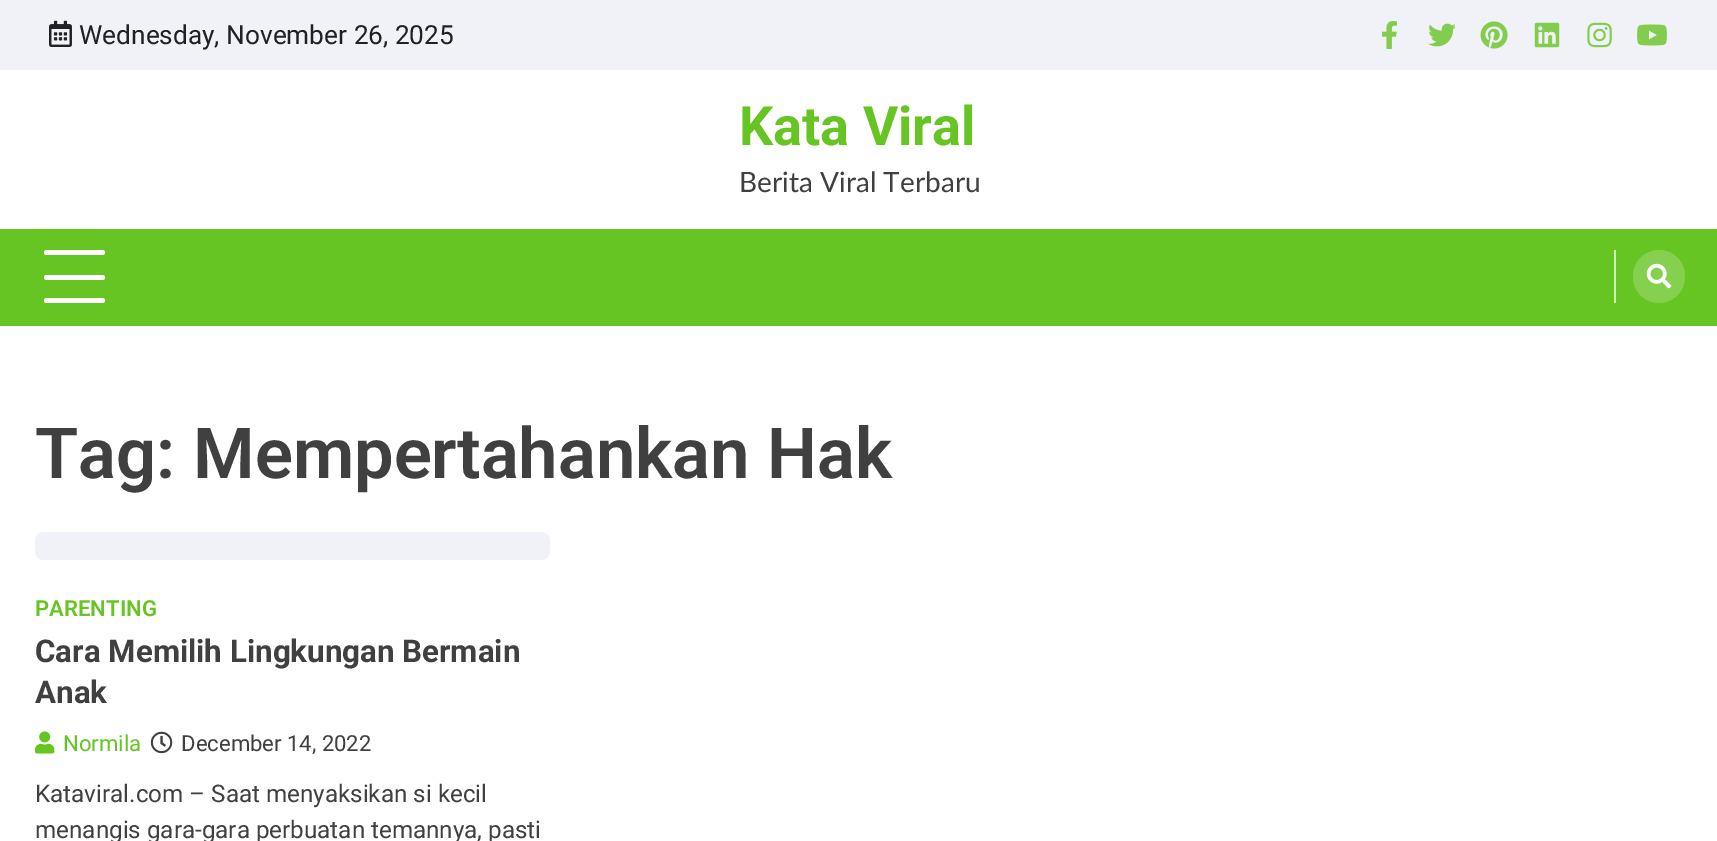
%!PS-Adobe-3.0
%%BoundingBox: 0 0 1717 841
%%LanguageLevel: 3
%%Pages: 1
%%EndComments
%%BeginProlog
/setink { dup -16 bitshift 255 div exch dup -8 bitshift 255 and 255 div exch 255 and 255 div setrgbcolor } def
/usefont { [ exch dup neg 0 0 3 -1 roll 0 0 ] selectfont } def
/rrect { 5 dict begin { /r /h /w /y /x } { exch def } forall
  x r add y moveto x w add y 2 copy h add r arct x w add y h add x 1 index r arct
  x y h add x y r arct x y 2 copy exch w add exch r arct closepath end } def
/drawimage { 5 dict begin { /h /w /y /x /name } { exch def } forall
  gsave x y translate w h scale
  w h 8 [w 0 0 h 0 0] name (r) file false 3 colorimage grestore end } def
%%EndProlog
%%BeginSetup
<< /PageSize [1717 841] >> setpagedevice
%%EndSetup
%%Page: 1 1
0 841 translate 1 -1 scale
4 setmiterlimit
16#FFFFFF setink
0 0 1717 841 rectfill
16#F0F2F7 setink
0 0 1717 70 rectfill
(img1.raw) 49 20 23 27 drawimage
/Roboto-Regular 26.25 usefont
16#202124 setink
79 44 moveto (Wednesday, November 26, 2025) show
(img2.raw) 1382 21 15 28 drawimage
(img3.raw) 1428 23 28 24 drawimage
(img4.raw) 1480 21 28 28 drawimage
(img5.raw) 1534 22 26 26 drawimage
(img6.raw) 1587 22 25 26 drawimage
(img7.raw) 1637 24 30 22 drawimage
/Roboto-Bold 54 usefont
16#66C423 setink
739 145 moveto (Kata Viral) show
/Lato-Regular 28 usefont
16#404040 setink
739 192 moveto (Berita Viral Terbaru) show
16#66C423 setink
0 229 1717 97 rectfill
16#FFFFFF setink
44 250 61 5 2.5 rrect fill
44 275 61 5 2.5 rrect fill
44 298 61 5 2.5 rrect fill
16#D1EDBD setink
1614 250 2 53 rectfill
16#85D04F setink
1633 250 52 53 26 rrect fill
(img8.raw) 1646 263 26 26 drawimage
/Roboto-SemiBold 70.5 usefont
16#404040 setink
35 478 moveto (Tag: Mempertahankan Hak) show
16#F0F2F7 setink
35 532 515 28 9 rrect fill
/Roboto-SemiBold 22.1 usefont
16#66C423 setink
35 616 moveto (PARENTING) show
/Roboto-Bold 31.3 usefont
16#404040 setink
35 662 moveto (Cara Memilih Lingkungan Bermain) show
35 703 moveto (Anak) show
(img9.raw) 35 731 20 23 drawimage
/Roboto-Regular 22.1 usefont
16#66C423 setink
63 751 moveto (Normila) show
(img10.raw) 150 731 23 23 drawimage
16#404040 setink
181 751 moveto (December 14, 2022) show
/Roboto-Regular 24.2 usefont
35 802 moveto (Kataviral.com – Saat menyaksikan si kecil) show
35 838 moveto (menangis gara-gara perbuatan temannya, pasti) show
showpage
%%EOF
